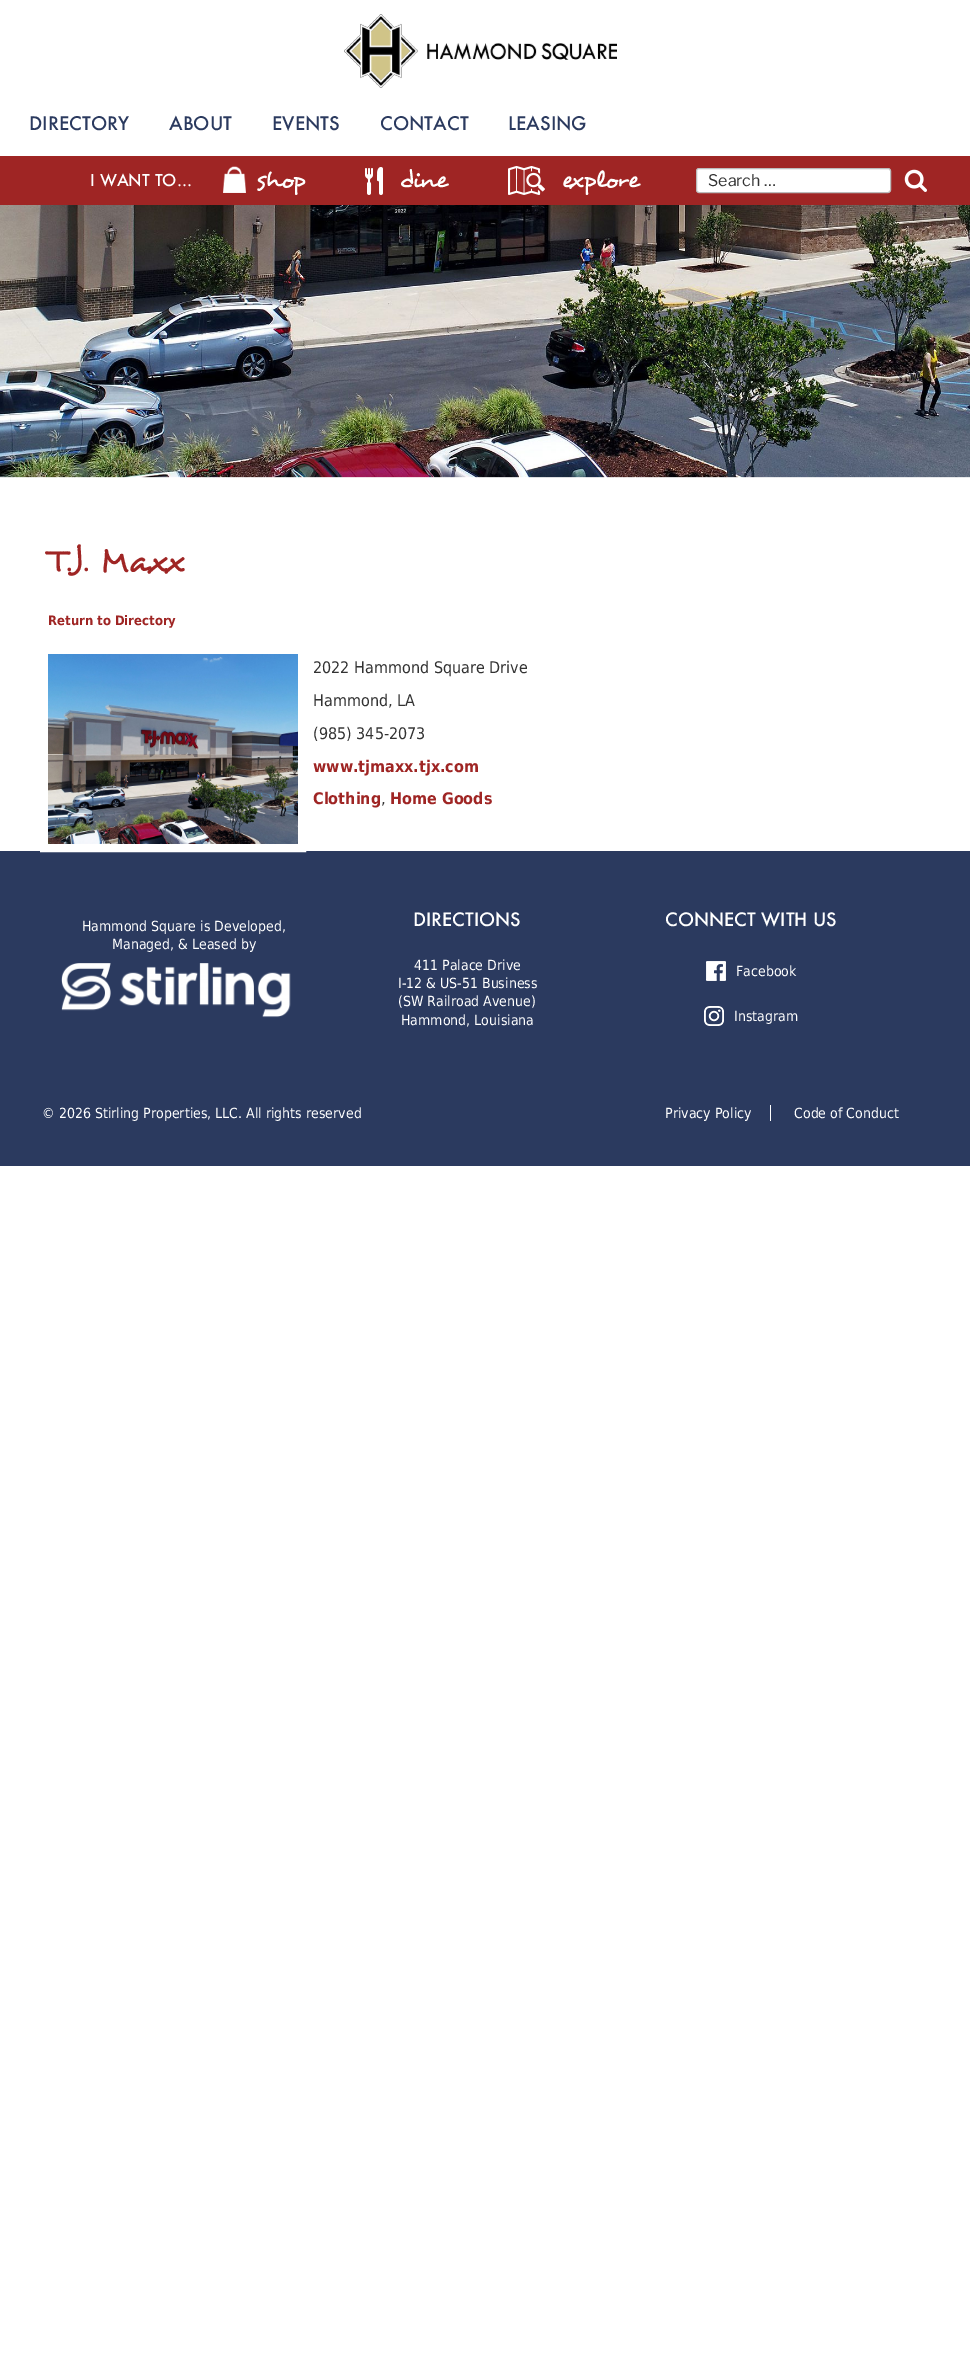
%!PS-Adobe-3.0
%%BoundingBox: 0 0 970 2356
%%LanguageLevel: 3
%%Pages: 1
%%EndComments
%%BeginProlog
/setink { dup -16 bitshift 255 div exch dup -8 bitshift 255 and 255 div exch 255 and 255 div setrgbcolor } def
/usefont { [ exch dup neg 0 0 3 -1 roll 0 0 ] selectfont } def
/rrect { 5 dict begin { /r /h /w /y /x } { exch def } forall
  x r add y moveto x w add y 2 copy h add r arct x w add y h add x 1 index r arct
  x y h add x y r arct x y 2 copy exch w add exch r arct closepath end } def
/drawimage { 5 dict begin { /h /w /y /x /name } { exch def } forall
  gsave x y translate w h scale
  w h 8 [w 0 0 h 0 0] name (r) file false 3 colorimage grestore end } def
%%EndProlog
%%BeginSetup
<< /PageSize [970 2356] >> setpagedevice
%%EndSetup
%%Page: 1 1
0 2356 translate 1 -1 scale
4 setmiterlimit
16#FFFFFF setink
0 0 970 2356 rectfill
(img1.raw) 344 14 273 74 drawimage
/Futura-Medium 18.25 usefont
16#2B3A5F setink
[
    [(DIRECTORY) 29 130]
    [(ABOUT) 169 130]
    [(EVENTS) 272 130]
    [(CONTACT) 380 130]
    [(LEASING) 508 130]
] { aload pop moveto show } forall
16#9F2524 setink
0 156 970 49 rectfill
/Futura-Medium 16 usefont
16#FFFFFF setink
90 186 moveto (I WANT TO...) show
(img2.raw) 223 166 83 29 drawimage
(img3.raw) 365 167 84 28 drawimage
(img4.raw) 508 166 133 29 drawimage
696.5 168.5 194 24 2.5 rrect gsave fill grestore
16#BBBBBB setink
stroke
/LibreFranklin-Regular 16 usefont
16#333333 setink
708 186 moveto (Search …) show
(img5.raw) 904 169 23 23 drawimage
(img6.raw) 0 205 970 273 drawimage
/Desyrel-Regular 35 usefont
16#9F2524 setink
48 570 moveto (T.J. Maxx) show
/DejaVuSans-Bold 13 usefont
48 625 moveto (Return to Directory) show
16#2B3A5F setink
0 851 970 315 rectfill
16#FFFFFF setink
8 setlinewidth
44 650 258 198 rectstroke
(img7.raw) 48 654 250 190 drawimage
/DejaVuSans-Regular 16 usefont
16#333333 setink
[
    [(2022 Hammond Square Drive) 313 673]
    [(Hammond, LA) 313 706]
    [(\(985\) 345-2073) 313 739]
] { aload pop moveto show } forall
/DejaVuSans-Bold 16 usefont
16#9F2524 setink
313 772 moveto (www.tjmaxx.tjx.com) show
313 804 moveto (Clothing) show
/DejaVuSans-Regular 16 usefont
16#333333 setink
381 804 moveto (,) show
/DejaVuSans-Bold 16 usefont
16#9F2524 setink
390 804 moveto (Home Goods) show
/DejaVuSans-Regular 14 usefont
16#FFFFFF setink
82 931 moveto (Hammond Square is Developed,) show
112 949 moveto (Managed, & Leased by) show
(img8.raw) 61 963 230 55 drawimage
/Futura-Medium 18 usefont
413 926 moveto (DIRECTIONS) show
/DejaVuSans-Regular 14 usefont
[
    [(411 Palace Drive) 414 970]
    [(I-12 & US-51 Business) 398 988]
    [(\(SW Railroad Avenue\)) 398 1006]
    [(Hammond, Louisiana) 401 1025]
] { aload pop moveto show } forall
/Futura-Medium 18 usefont
665 926 moveto (CONNECT WITH US) show
(img9.raw) 706 961 20 20 drawimage
/DejaVuSans-Regular 14 usefont
736 976 moveto (Facebook) show
(img10.raw) 704 1006 20 20 drawimage
[
    [(Instagram) 734 1021]
    [(© 2026 Stirling Properties, LLC. All rights reserved) 42 1118]
    [(Privacy Policy) 665 1118]
] { aload pop moveto show } forall
770 1105 1 16 rectfill
794 1118 moveto (Code of Conduct) show
showpage
%%EOF
